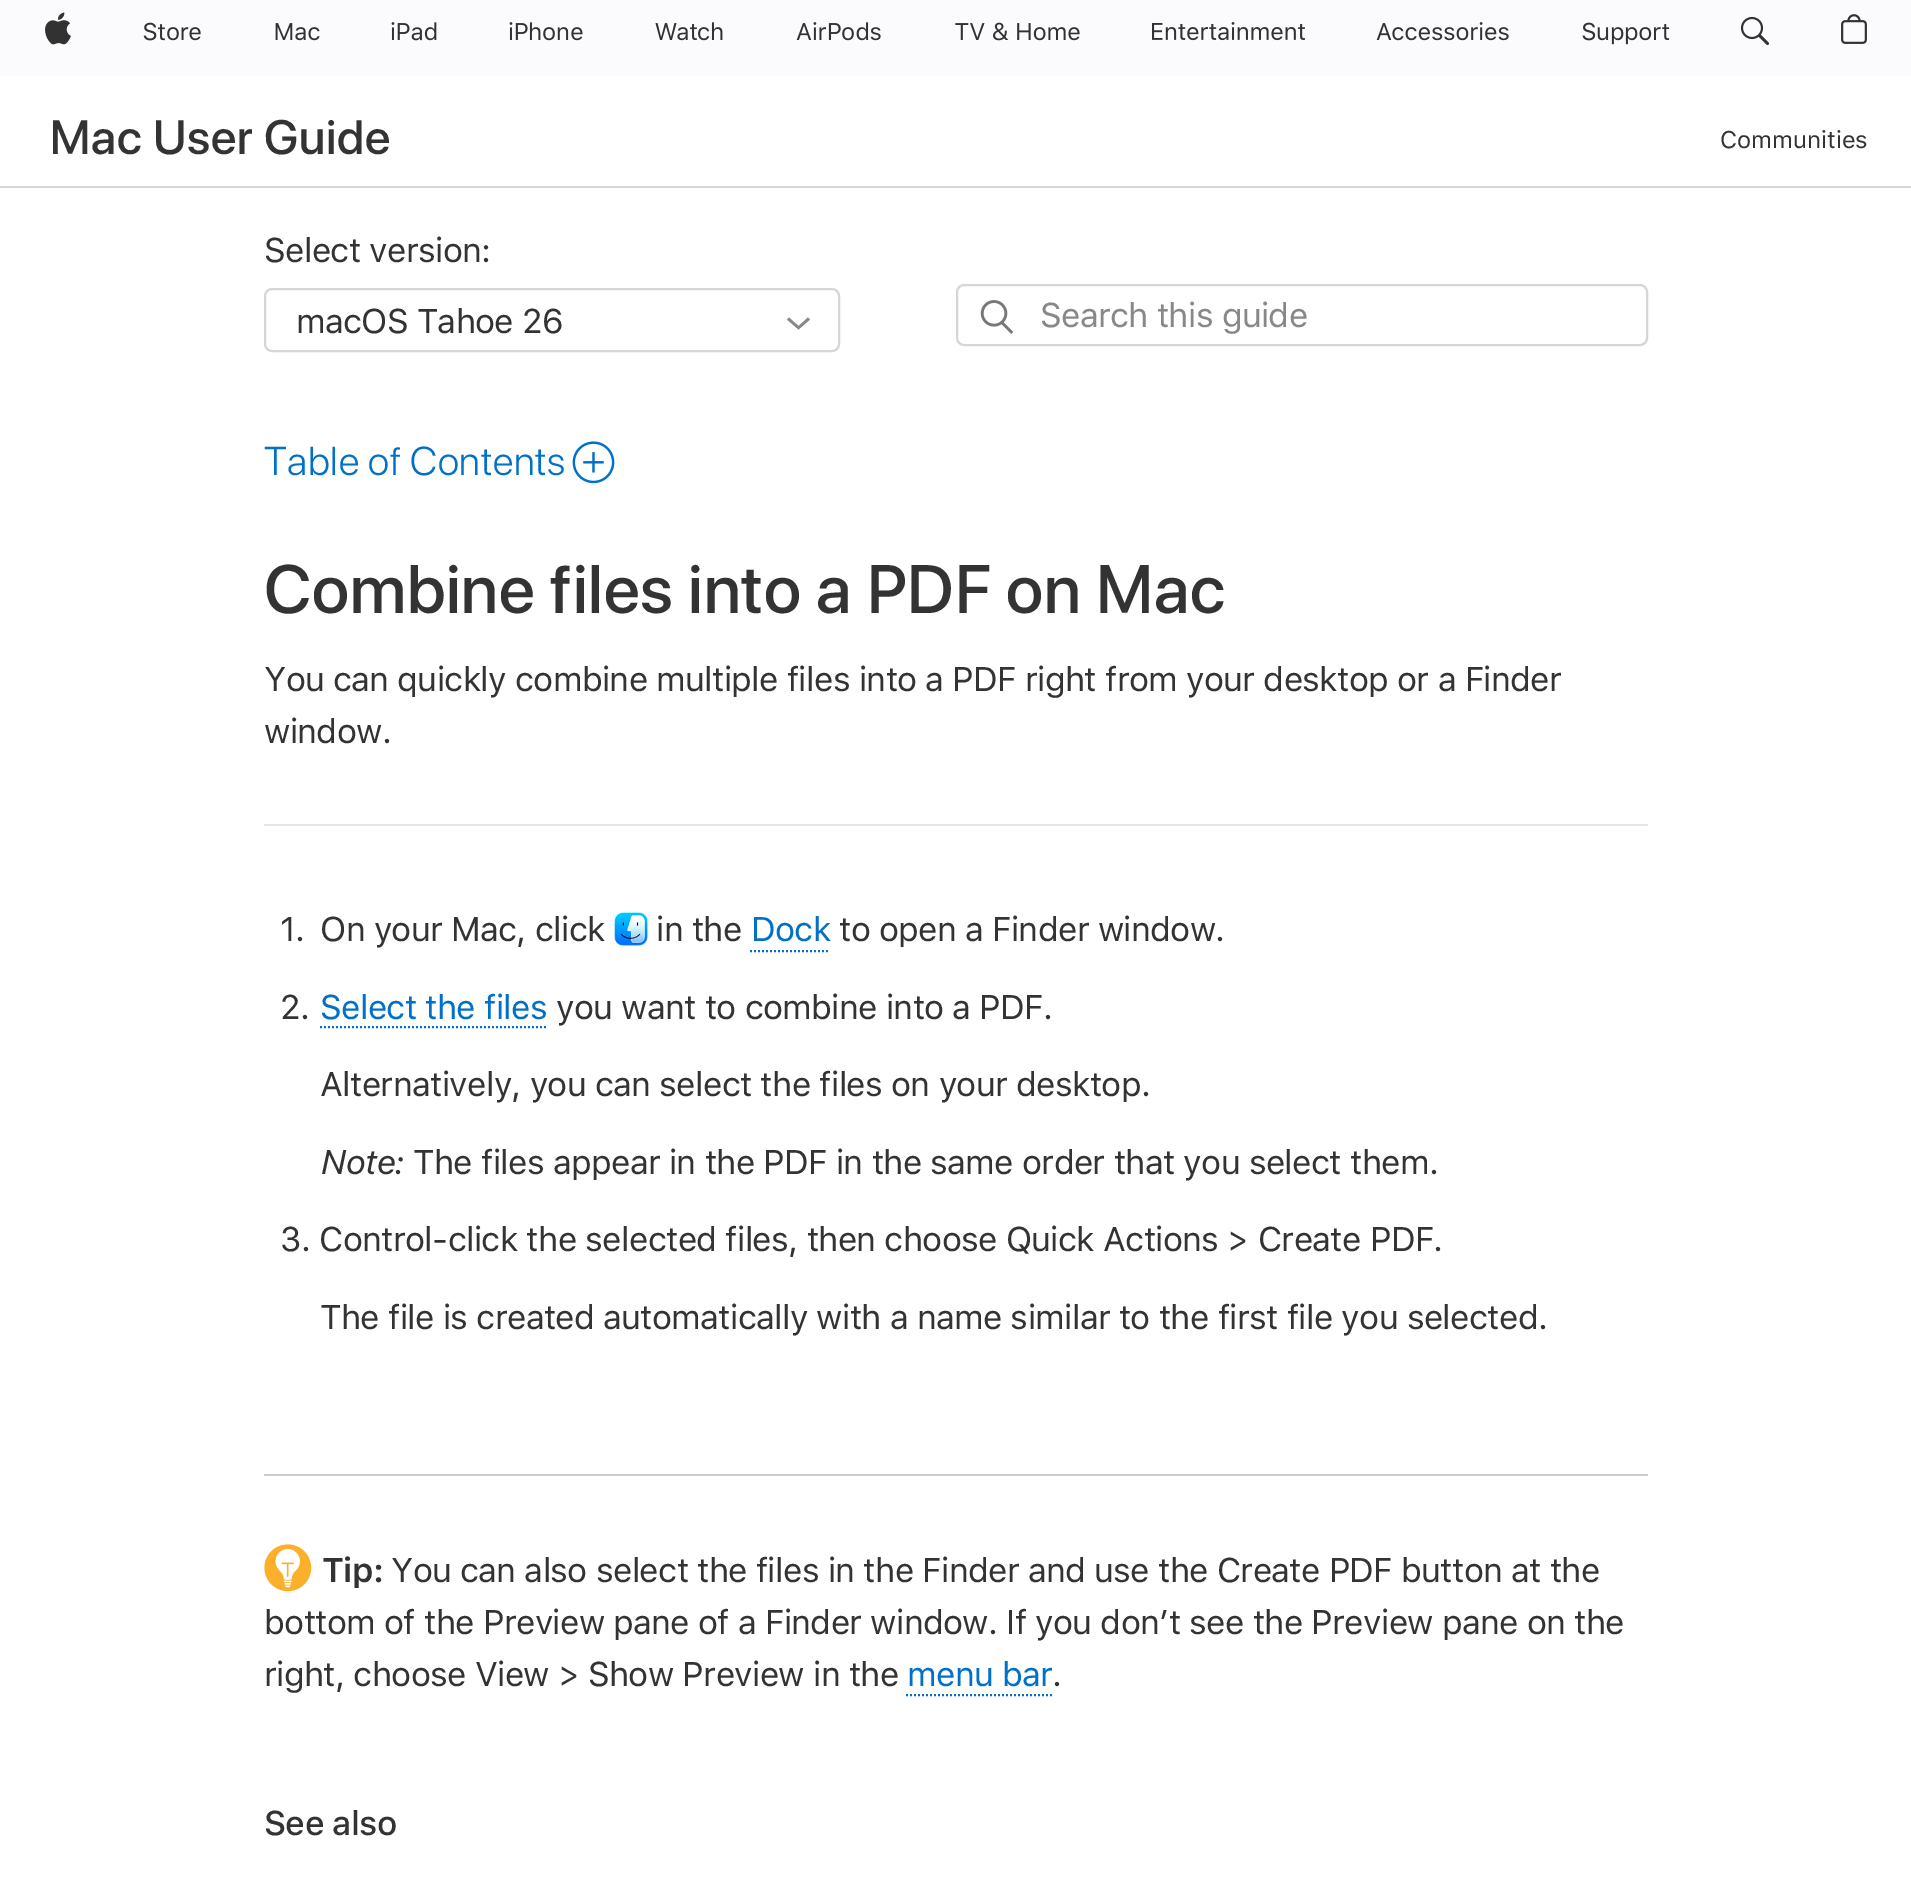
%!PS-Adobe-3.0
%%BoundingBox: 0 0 1911 1888
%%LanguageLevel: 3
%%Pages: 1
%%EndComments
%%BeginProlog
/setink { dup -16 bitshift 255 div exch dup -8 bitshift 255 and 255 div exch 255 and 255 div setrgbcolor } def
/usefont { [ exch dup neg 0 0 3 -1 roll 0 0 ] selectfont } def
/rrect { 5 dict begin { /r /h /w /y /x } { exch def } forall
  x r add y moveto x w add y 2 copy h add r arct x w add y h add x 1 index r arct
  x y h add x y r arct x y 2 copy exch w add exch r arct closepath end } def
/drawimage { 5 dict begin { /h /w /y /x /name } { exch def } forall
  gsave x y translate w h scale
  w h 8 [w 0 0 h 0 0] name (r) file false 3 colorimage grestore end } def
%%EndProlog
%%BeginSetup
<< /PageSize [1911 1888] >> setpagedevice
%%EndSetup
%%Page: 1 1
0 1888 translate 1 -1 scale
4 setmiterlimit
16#FFFFFF setink
0 0 1911 1888 rectfill
16#FBFBFD setink
0 0 1911 76 rectfill
(img1.raw) 45 12 26 33 drawimage
(img2.raw) 143 22 58 19 drawimage
(img3.raw) 275 23 45 18 drawimage
(img4.raw) 391 22 46 19 drawimage
(img5.raw) 509 22 74 19 drawimage
(img6.raw) 655 22 68 19 drawimage
(img7.raw) 796 22 85 19 drawimage
(img8.raw) 955 22 125 19 drawimage
(img9.raw) 1152 22 153 19 drawimage
(img10.raw) 1376 22 133 19 drawimage
(img11.raw) 1582 22 88 23 drawimage
(img12.raw) 1740 16 29 29 drawimage
(img13.raw) 1841 14 26 30 drawimage
/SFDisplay-Medium 48 usefont
16#333333 setink
50 154 moveto 0.75 0 (Mac User Guide) ashow
/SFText-Regular 24 usefont
1720 148 moveto (Communities) show
16#D6D6D6 setink
0 186 1911 2 rectfill
/SFText-Regular 34 usefont
16#333333 setink
264 262 moveto -0.7 0 (Select version:) ashow
16#D6D6D6 setink
2 setlinewidth
265 289 574 62 7 rrect stroke
16#333333 setink
296 333 moveto -0.7 0 (macOS Tahoe 26) ashow
16#888888 setink
789 317.5 moveto 787 319.5 lineto 798.5 329.5 lineto 810 319.5 lineto 808 317.5 lineto 798.5 326 lineto closepath fill
16#D6D6D6 setink
957 285 690 60 7 rrect stroke
(img14.raw) 980 300 34 34 drawimage
16#888888 setink
1040 327 moveto -0.7 0 (Search this guide) ashow
/SFDisplay-Light 40 usefont
16#0070C9 setink
264 475 moveto 0.7 0 (Table of Contents) ashow
(img15.raw) 572 441 43 43 drawimage
/SFDisplay-Medium 68 usefont
16#333333 setink
264 613 moveto 0.7 0 (Combine files into a PDF on Mac) ashow
/SFText-Regular 34 usefont
264 691 moveto -0.7 0 (You can quickly combine multiple files into a PDF right from your desktop or a Finder) ashow
264 743 moveto -0.7 0 (window.) ashow
16#E6E6E6 setink
264 824 1384 2 rectfill
16#333333 setink
280 941 moveto -0.7 0 (1.) ashow
320 941 moveto -0.7 0 (On your Mac, click) ashow
(img16.raw) 614 912 34 34 drawimage
656 941 moveto -0.7 0 (in the) ashow
16#0070C9 setink
751 941 moveto -0.7 0 (Dock) ashow
[2 2] 0 setdash
750 951 moveto 830 951 lineto stroke
16#333333 setink
839 941 moveto -0.7 0 (to open a Finder window.) ashow
280 1019 moveto -0.7 0 (2.) ashow
16#0070C9 setink
320 1019 moveto -0.7 0 (Select the files) ashow
320 1027 moveto 546 1027 lineto stroke
16#333333 setink
556 1019 moveto -0.7 0 (you want to combine into a PDF.) ashow
320 1096 moveto -0.7 0 (Alternatively, you can select the files on your desktop.) ashow
/SFText-Italic 34 usefont
320 1174 moveto -0.7 0 (Note:) ashow
/SFText-Regular 34 usefont
413 1174 moveto -0.7 0 (The files appear in the PDF in the same order that you select them.) ashow
280 1251 moveto -0.7 0 (3. Control-click the selected files, then choose Quick Actions > Create PDF.) ashow
320 1329 moveto -0.7 0 (The file is created automatically with a name similar to the first file you selected.) ashow
16#CCCCCC setink
264 1474 1384 2 rectfill
(img17.raw) 264 1544 48 48 drawimage
/SFText-SemiBold 34 usefont
16#333333 setink
322 1582 moveto -0.7 0 (Tip:) ashow
/SFText-Regular 34 usefont
391 1582 moveto -0.7 0 (You can also select the files in the Finder and use the Create PDF button at the) ashow
264 1634 moveto -0.7 0 (bottom of the Preview pane of a Finder window. If you don’t see the Preview pane on the) ashow
264 1686 moveto -0.7 0 (right, choose View > Show Preview in the) ashow
16#0070C9 setink
907 1686 moveto -0.7 0 (menu bar) ashow
906 1695 moveto 1052 1695 lineto stroke
16#333333 setink
1052 1686 moveto -0.7 0 (.) ashow
/SFText-Medium 34 usefont
264 1835 moveto -0.7 0 (See also) ashow
showpage
%%EOF
